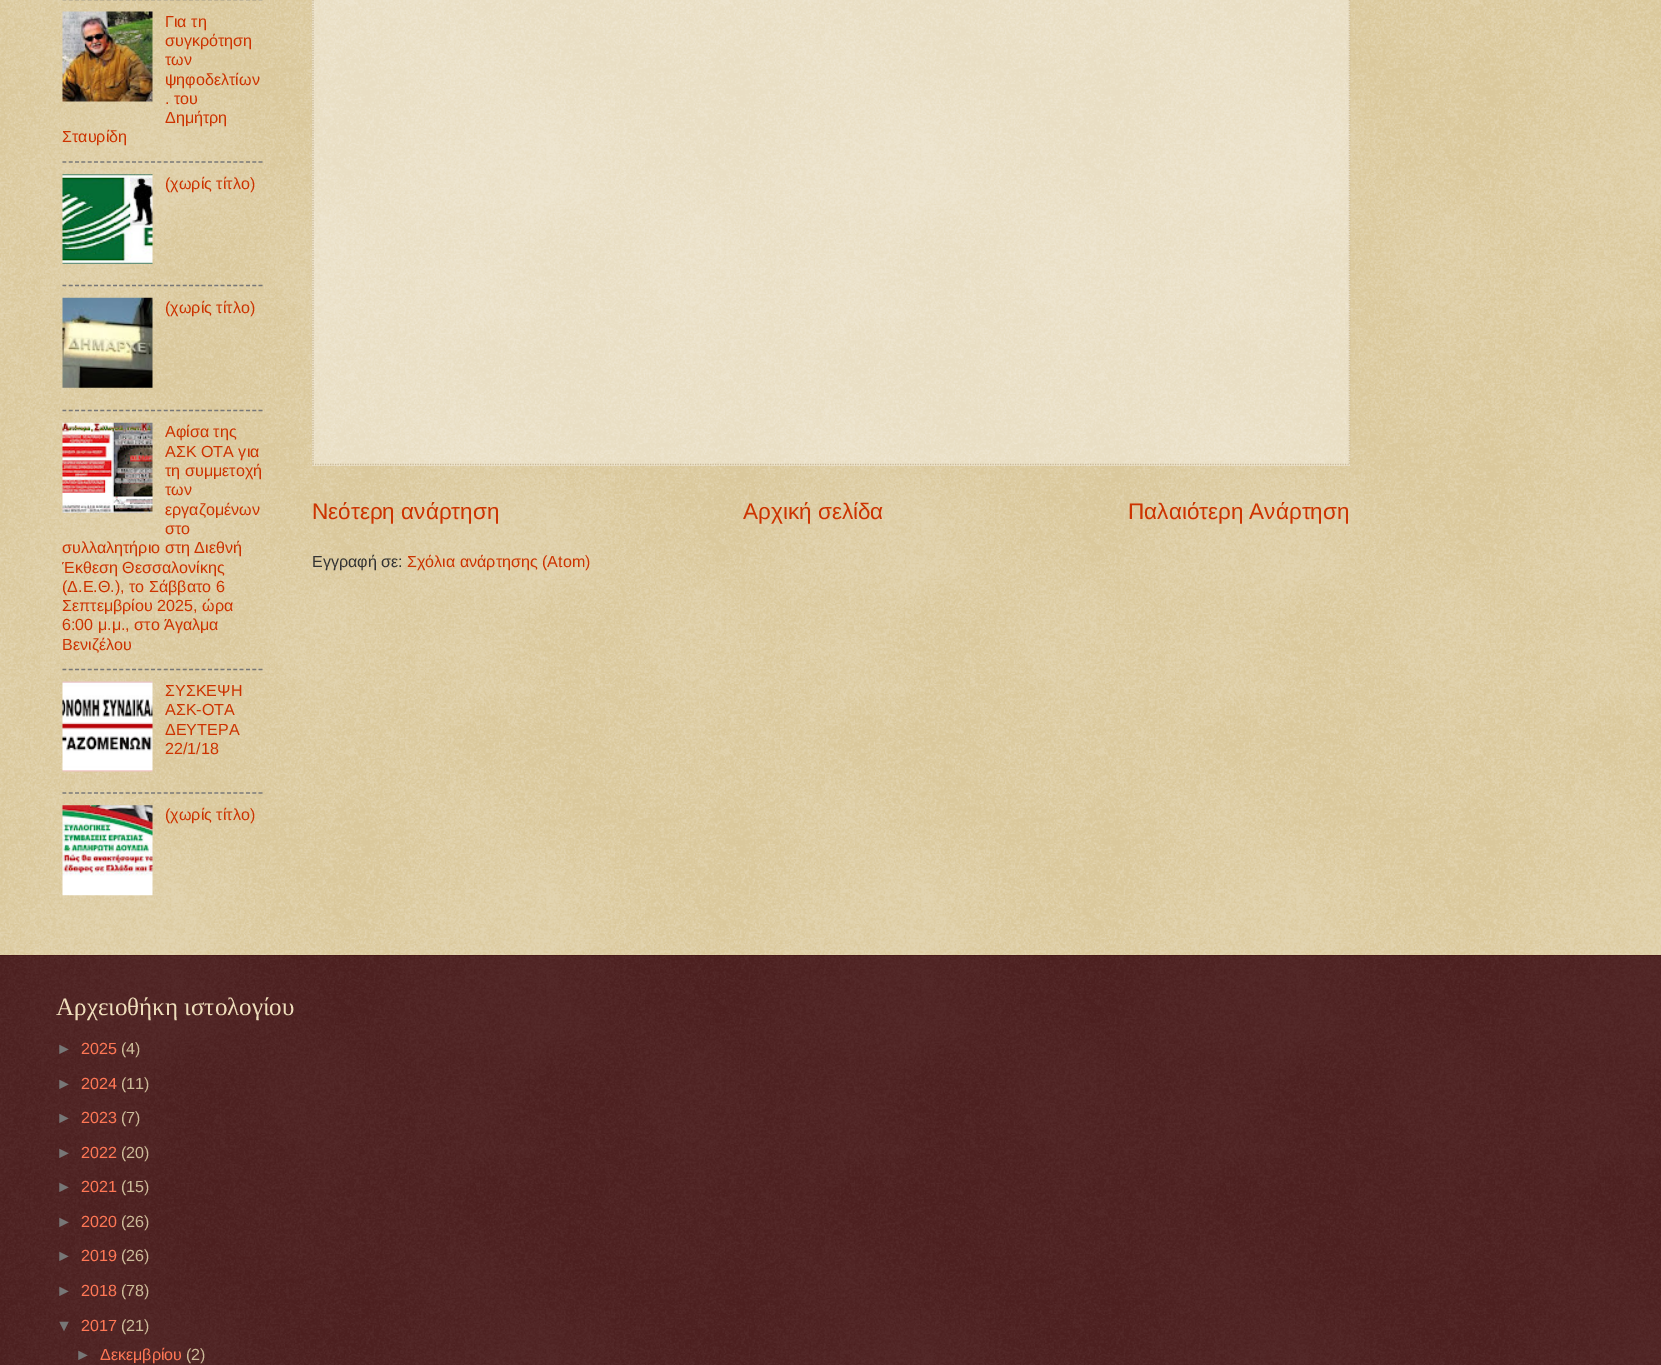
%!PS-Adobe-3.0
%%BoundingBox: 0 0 1661 1365
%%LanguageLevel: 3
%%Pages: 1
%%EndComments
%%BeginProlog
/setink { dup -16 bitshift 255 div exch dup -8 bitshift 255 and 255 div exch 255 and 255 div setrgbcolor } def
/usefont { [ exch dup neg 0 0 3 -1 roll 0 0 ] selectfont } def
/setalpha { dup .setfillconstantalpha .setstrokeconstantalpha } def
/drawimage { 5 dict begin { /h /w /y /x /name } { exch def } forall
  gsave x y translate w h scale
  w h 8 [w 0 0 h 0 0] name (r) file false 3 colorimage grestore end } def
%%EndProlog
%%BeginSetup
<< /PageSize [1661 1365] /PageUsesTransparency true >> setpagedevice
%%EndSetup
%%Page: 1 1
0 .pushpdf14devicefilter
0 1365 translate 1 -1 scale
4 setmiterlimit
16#C0A154 setink
0 0 1661 1365 rectfill
(img1.raw) 0 0 1661 955 drawimage
16#777777 setink
1.2 setlinewidth
[3.75 2.58] 0 setdash
62.5 -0.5 moveto 262.5 -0.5 lineto stroke
(img2.raw) 62 11 91 91 drawimage
/LiberationSans-Regular 16.1 usefont
16#CC3300 setink
[
    [(Για τη) 165 27]
    [(συγκρότηση) 165 46]
    [(των) 165 65]
    [(ψηφοδελτίων) 165 85]
    [(. του) 165 104]
    [(Δημήτρη) 165 123]
    [(Σταυρίδη) 62 142]
] { aload pop moveto show } forall
16#777777 setink
62.5 162 moveto 262.5 162 lineto stroke
(img3.raw) 62 174 91 90 drawimage
16#CC3300 setink
165 189 moveto (\(χωρίς τίτλο\)) show
16#777777 setink
62.5 285.5 moveto 262.5 285.5 lineto stroke
(img4.raw) 62 297 91 91 drawimage
16#CC3300 setink
165 313 moveto (\(χωρίς τίτλο\)) show
16#777777 setink
62.5 410.5 moveto 262.5 410.5 lineto stroke
(img5.raw) 62 422 91 91 drawimage
16#CC3300 setink
[
    [(Αφίσα της) 165 437]
    [(ΑΣΚ ΟΤΑ για) 165 457]
    [(τη συμμετοχή) 165 476]
    [(των) 165 495]
    [(εργαζομένων) 165 515]
    [(στο) 165 534]
    [(συλλαλητήριο στη Διεθνή) 62 553]
    [(Έκθεση Θεσσαλονίκης) 62 573]
    [(\(Δ.Ε.Θ.\), το Σάββατο 6) 62 592]
    [(Σεπτεμβρίου 2025, ώρα) 62 611]
    [(6:00 μ.μ., στο Άγαλμα) 62 630]
    [(Βενιζέλου) 62 650]
] { aload pop moveto show } forall
16#777777 setink
62.5 669.5 moveto 262.5 669.5 lineto stroke
(img6.raw) 62 681 91 91 drawimage
16#CC3300 setink
[
    [(ΣΥΣΚΕΨΗ) 165 696]
    [(ΑΣΚ-ΟΤΑ) 165 715]
    [(ΔΕΥΤΕΡΑ) 165 735]
    [(22/1/18) 165 754]
] { aload pop moveto show } forall
16#777777 setink
62.5 793 moveto 262.5 793 lineto stroke
(img7.raw) 62 805 91 91 drawimage
16#CC3300 setink
165 820 moveto (\(χωρίς τίτλο\)) show
0.4 setalpha
16#FFFFFF setink
312 0 1038 466 rectfill
1 setalpha
16#CCBB99 setink
[1.25 1.25] 0 setdash
1349.5 -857.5 moveto 1349.5 465 lineto stroke
312.5 464.5 moveto 1350 464.5 lineto stroke
313 -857.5 moveto 313 465 lineto stroke
/LiberationSans-Regular 22.5 usefont
16#CC3300 setink
[
    [(Νεότερη ανάρτηση) 312 519]
    [(Αρχική σελίδα) 743 519]
    [(Παλαιότερη Ανάρτηση) 1128 519]
] { aload pop moveto show } forall
/LiberationSans-Regular 16.1 usefont
16#333333 setink
312 567 moveto (Εγγραφή σε:) show
16#CC3300 setink
407 567 moveto (Σχόλια ανάρτησης \(Atom\)) show
16#330000 setink
0 955 1661 410 rectfill
(img8.raw) 0 955 1661 410 drawimage
/LiberationSerif-Regular 25 usefont
16#EEDDBB setink
56 1015 moveto (Αρχειοθήκη ιστολογίου) show
/LiberationSans-Regular 16.1 usefont
16#777777 setink
56 1054 moveto (►) show
16#FF7755 setink
81 1054 moveto (2025) show
16#CCBB99 setink
121 1054 moveto (\(4\)) show
16#777777 setink
56 1089 moveto (►) show
16#FF7755 setink
81 1089 moveto (2024) show
16#CCBB99 setink
121 1089 moveto (\(11\)) show
16#777777 setink
56 1123 moveto (►) show
16#FF7755 setink
81 1123 moveto (2023) show
16#CCBB99 setink
121 1123 moveto (\(7\)) show
16#777777 setink
56 1158 moveto (►) show
16#FF7755 setink
81 1158 moveto (2022) show
16#CCBB99 setink
121 1158 moveto (\(20\)) show
16#777777 setink
56 1192 moveto (►) show
16#FF7755 setink
81 1192 moveto (2021) show
16#CCBB99 setink
121 1192 moveto (\(15\)) show
16#777777 setink
56 1227 moveto (►) show
16#FF7755 setink
81 1227 moveto (2020) show
16#CCBB99 setink
121 1227 moveto (\(26\)) show
16#777777 setink
56 1261 moveto (►) show
16#FF7755 setink
81 1261 moveto (2019) show
16#CCBB99 setink
121 1261 moveto (\(26\)) show
16#777777 setink
56 1296 moveto (►) show
16#FF7755 setink
81 1296 moveto (2018) show
16#CCBB99 setink
121 1296 moveto (\(78\)) show
16#777777 setink
56 1331 moveto (▼) show
16#FF7755 setink
81 1331 moveto (2017) show
16#CCBB99 setink
121 1331 moveto (\(21\)) show
16#777777 setink
75 1360 moveto (►) show
16#FF7755 setink
100 1360 moveto (Δεκεμβρίου) show
16#CCBB99 setink
186 1360 moveto (\(2\)) show
.poppdf14devicefilter showpage
%%EOF
